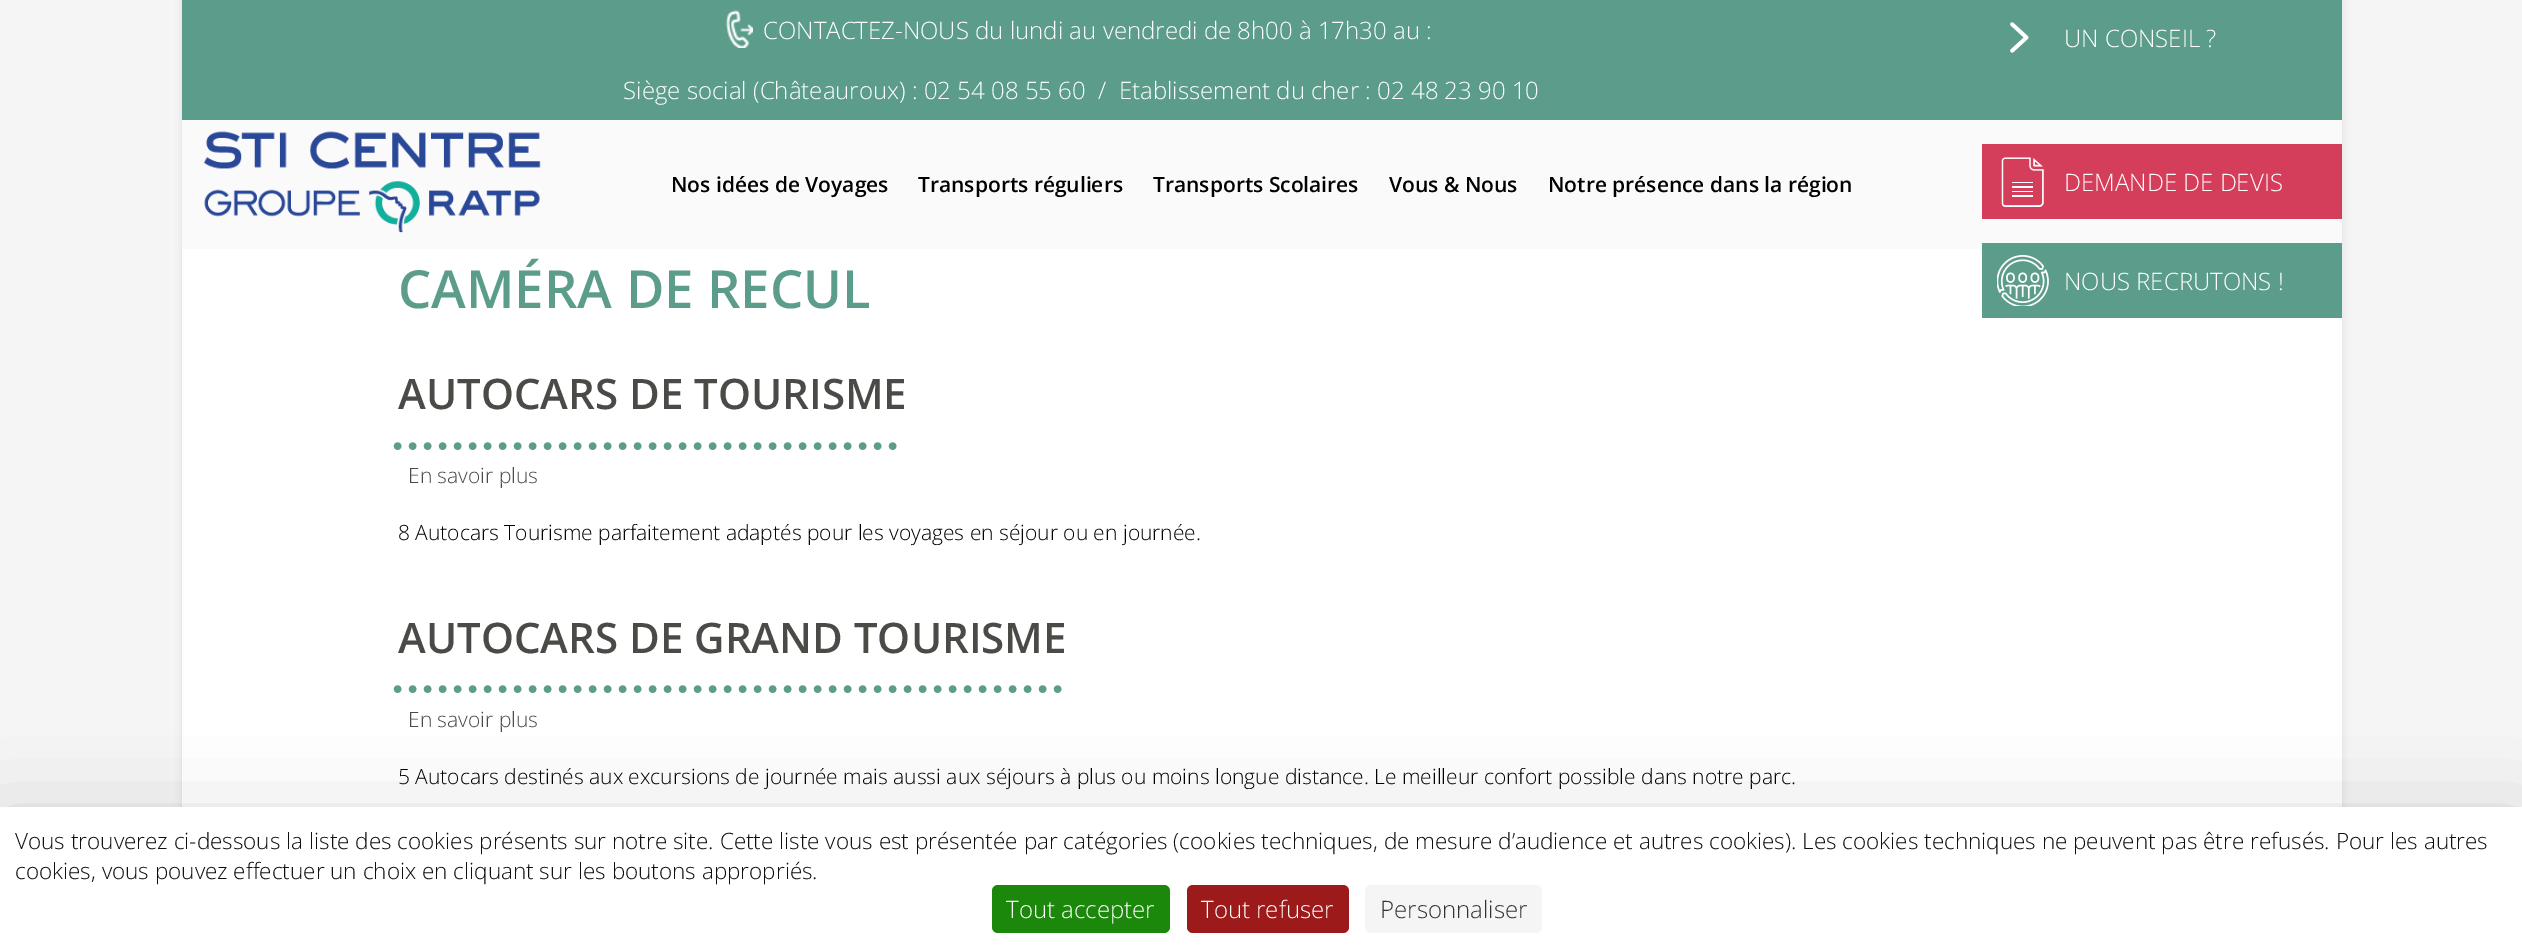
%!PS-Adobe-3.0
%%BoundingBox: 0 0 2522 948
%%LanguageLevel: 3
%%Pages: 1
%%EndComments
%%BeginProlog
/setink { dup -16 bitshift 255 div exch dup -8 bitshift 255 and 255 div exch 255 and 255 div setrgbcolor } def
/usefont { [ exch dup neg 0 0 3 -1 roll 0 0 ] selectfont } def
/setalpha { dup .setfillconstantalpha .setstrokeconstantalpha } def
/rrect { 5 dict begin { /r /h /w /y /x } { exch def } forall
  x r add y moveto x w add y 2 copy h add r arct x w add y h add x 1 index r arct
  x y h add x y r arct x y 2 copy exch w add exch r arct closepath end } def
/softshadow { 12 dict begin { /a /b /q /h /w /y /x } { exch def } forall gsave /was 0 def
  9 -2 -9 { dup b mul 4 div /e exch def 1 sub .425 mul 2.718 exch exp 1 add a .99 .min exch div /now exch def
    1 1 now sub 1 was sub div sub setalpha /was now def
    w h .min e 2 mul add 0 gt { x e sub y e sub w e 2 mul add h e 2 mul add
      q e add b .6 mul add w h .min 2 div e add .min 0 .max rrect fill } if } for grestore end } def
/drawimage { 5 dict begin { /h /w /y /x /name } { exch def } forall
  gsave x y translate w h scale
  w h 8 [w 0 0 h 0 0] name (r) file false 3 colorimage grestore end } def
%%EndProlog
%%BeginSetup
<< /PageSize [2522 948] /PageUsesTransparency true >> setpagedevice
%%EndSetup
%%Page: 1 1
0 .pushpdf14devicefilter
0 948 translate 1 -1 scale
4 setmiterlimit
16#F5F5F5 setink
0 0 2522 948 rectfill
16#DDDDDD setink
182 0 2160 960 0 4 1 softshadow
16#FFFFFF setink
182 249 2160 558 rectfill
16#5C9C8B setink
182 0 2160 120 rectfill
(img1.raw) 726 10 27 38 drawimage
/OpenSans-Light 24 usefont
16#FFFFFF setink
[
    [(CONTACTEZ-NOUS) 763 39]
    [(du lundi au vendredi de 8h00 à 17h30 au :) 975 39]
    [(Siège social \(Châteauroux\) : 02 54 08 55 60  /  Etablissement du cher : 02 48 23 90 10) 623 99]
] { aload pop moveto show } forall
(img2.raw) 2010 22 19 31 drawimage
2064 47 moveto (UN CONSEIL ?) show
16#FAFAFA setink
182 120 2160 129 rectfill
(img3.raw) 203 131 338 102 drawimage
/OpenSans-SemiBold 21 usefont
16#000000 setink
[
    [(Nos idées de Voyages) 671 192]
    [(Transports réguliers) 918 192]
    [(Transports Scolaires) 1153 192]
    [(Vous & Nous) 1389 192]
    [(Notre présence dans la région) 1548 192]
] { aload pop moveto show } forall
16#D53E5A setink
1982 144 360 75 rectfill
(img4.raw) 2001 157 43 50 drawimage
/OpenSans-Light 24 usefont
16#FFFFFF setink
2064 191 moveto (DEMANDE DE DEVIS) show
16#5C9C8B setink
1982 243 360 75 rectfill
(img5.raw) 1997 255 52 51 drawimage
16#FFFFFF setink
2064 290 moveto (NOUS RECRUTONS !) show
/OpenSans-SemiBold 52.5 usefont
16#5C9C8B setink
398 308 moveto (CAMÉRA DE RECUL) show
/OpenSans-SemiBold 42 usefont
16#4A4A47 setink
398 409 moveto (AUTOCARS DE TOURISME) show
16#5C9C8B setink
7.5 setlinewidth
1 setlinecap
[0 15] 0 setdash
397.5 446 moveto 906 446 lineto stroke
/OpenSans-Light 21 usefont
16#4A4A47 setink
408 483 moveto (En savoir plus) show
16#000000 setink
398 540 moveto (8 Autocars Tourisme parfaitement adaptés pour les voyages en séjour ou en journée.) show
/OpenSans-SemiBold 42 usefont
16#4A4A47 setink
398 653 moveto (AUTOCARS DE GRAND TOURISME) show
16#5C9C8B setink
397.5 689 moveto 1066.5 689 lineto stroke
/OpenSans-Light 21 usefont
16#4A4A47 setink
408 727 moveto (En savoir plus) show
16#000000 setink
398 784 moveto (5 Autocars destinés aux excursions de journée mais aussi aux séjours à plus ou moins longue distance. Le meilleur confort possible dans notre parc.) show
0 837 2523 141 0 45 0.25 softshadow
16#FFFFFF setink
0 807 2522 141 rectfill
/OpenSans-Light 22.5 usefont
16#0F0F0F setink
15 849 moveto (Vous trouverez ci-dessous la liste des cookies présents sur notre site. Cette liste vous est présentée par catégories \(cookies techniques, de mesure d’audience et autres cookies\). Les cookies techniques ne peuvent pas être refusés. Pour les autres) show
15 879 moveto (cookies, vous pouvez effectuer un choix en cliquant sur les boutons appropriés.) show
16#1B870B setink
992 885 178 48 6 rrect fill
/OpenSans-Light 24 usefont
16#FFFFFF setink
1006 918 moveto (Tout accepter) show
16#9C1A1A setink
1187 885 162 48 6 rrect fill
16#FFFFFF setink
1201 918 moveto (Tout refuser) show
16#F5F5F5 setink
1365 885 177 48 6 rrect fill
16#333333 setink
1380 918 moveto (Personnaliser) show
.poppdf14devicefilter showpage
%%EOF
